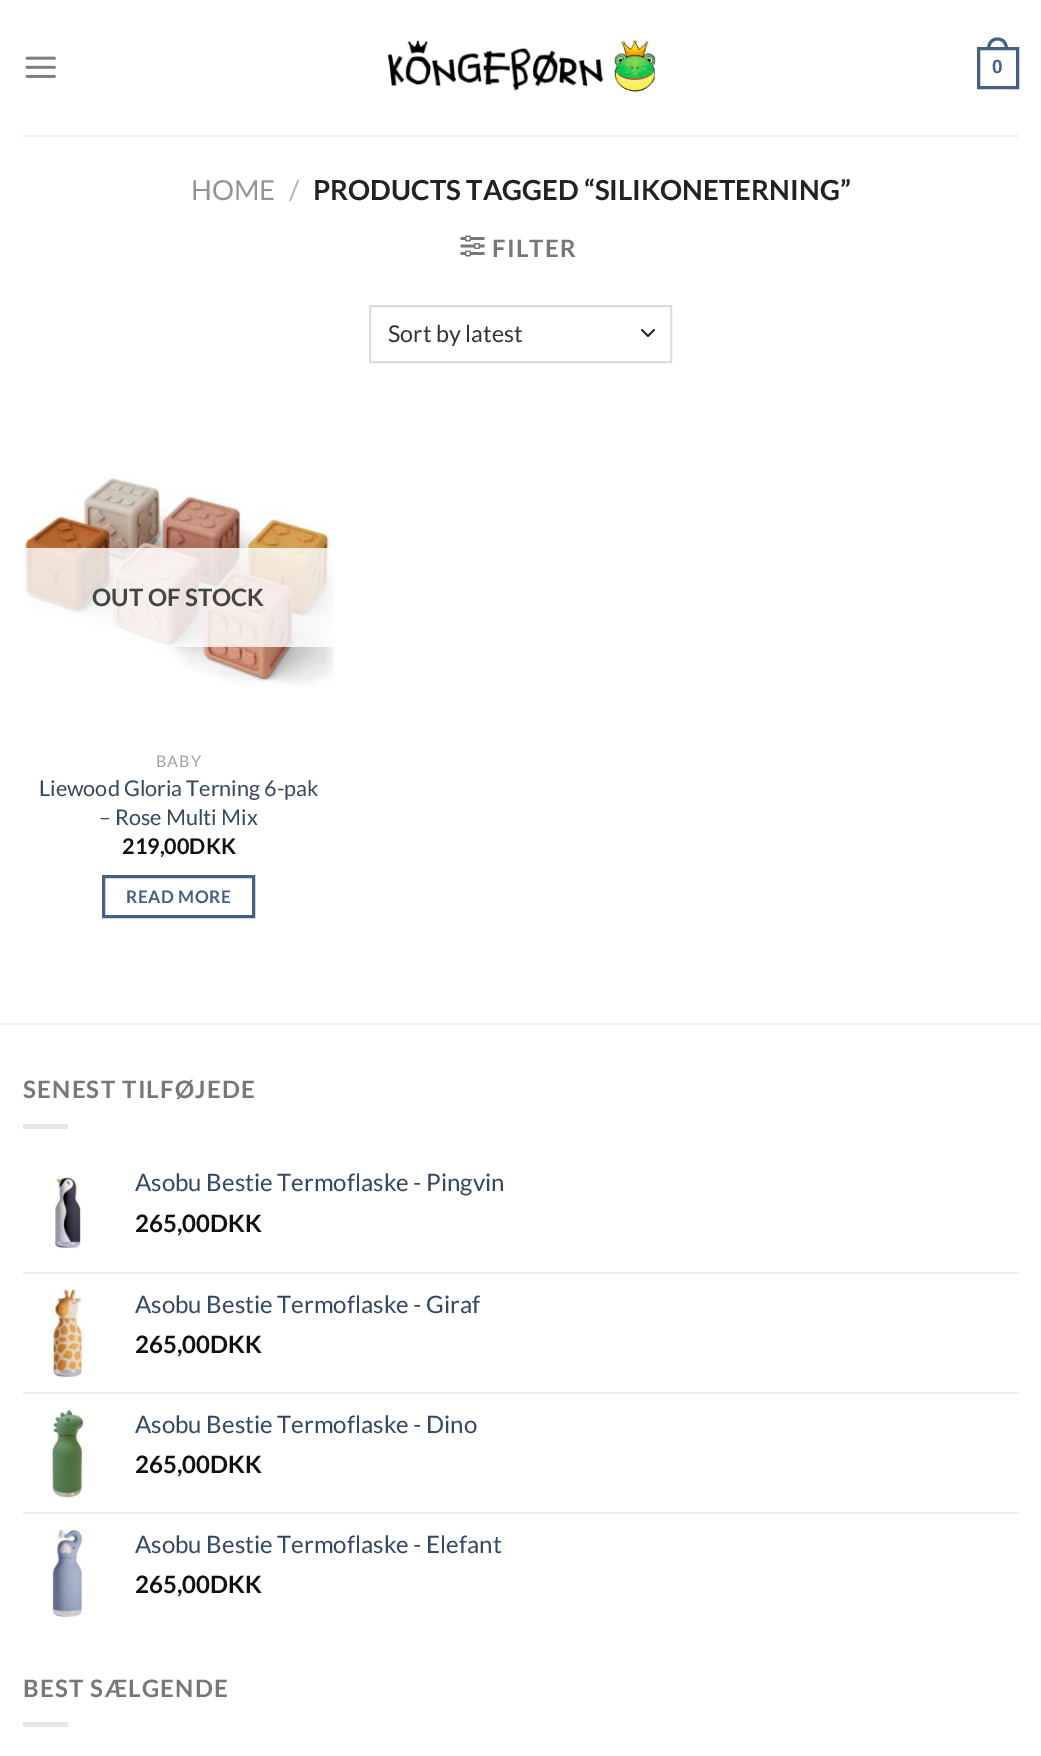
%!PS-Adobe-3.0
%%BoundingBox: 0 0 1041 1756
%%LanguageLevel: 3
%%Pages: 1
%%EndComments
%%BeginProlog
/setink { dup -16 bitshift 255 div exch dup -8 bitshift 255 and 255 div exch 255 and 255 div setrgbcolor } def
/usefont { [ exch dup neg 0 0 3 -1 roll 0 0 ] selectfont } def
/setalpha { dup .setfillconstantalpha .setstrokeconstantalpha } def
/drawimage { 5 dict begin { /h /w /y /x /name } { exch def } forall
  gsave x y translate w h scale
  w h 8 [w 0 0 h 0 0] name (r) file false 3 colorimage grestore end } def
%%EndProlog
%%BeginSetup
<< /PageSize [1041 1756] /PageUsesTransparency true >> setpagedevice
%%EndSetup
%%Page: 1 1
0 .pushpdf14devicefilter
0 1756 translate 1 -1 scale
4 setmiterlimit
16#FFFFFF setink
0 0 1041 1756 rectfill
(img1.raw) 25 56 31 22 drawimage
(img2.raw) 387 40 269 52 drawimage
16#446084 setink
3 setlinewidth
978.5 48.5 39 39 rectstroke
997.5 37.5 moveto 1004.5 37.5 1008 43 1008 49.5 curveto 987 49.5 lineto 987 43 990.5 37.5 997.5 37.5 curveto closepath 997.5 40.5 moveto 1003 40.5 1005 45 1005 49.5 curveto 990 49.5 lineto 990 45 992 40.5 997.5 40.5 curveto closepath eofill
/LiberationSans-Bold 19 usefont
992 73 moveto (0) show
16#F1F1F1 setink
23 135 996 2 rectfill
/Lato-Regular 27.6 usefont
16#949494 setink
191 200 moveto (HOME) show
16#B2B2B2 setink
289 200 moveto (/) show
/Lato-Bold 27.6 usefont
16#222222 setink
313 200 moveto (PRODUCTS TAGGED “SILIKONETERNING”) show
(img3.raw) 460 235 25 22 drawimage
/Lato-Bold 24 usefont
16#777777 setink
492 257 moveto 1.25 0 (FILTER) ashow
16#333333 setink
2 setlinewidth
1 setlinecap
1 setlinejoin
642 330 moveto 648 336 lineto 654 330 lineto stroke
16#DDDDDD setink
0 setlinecap
0 setlinejoin
370 306 301 56 rectstroke
/Lato-Regular 23.25 usefont
16#333333 setink
388 342 moveto (Sort by latest) show
(img4.raw) 23 474 312 215 drawimage
0.81 setalpha
16#FFFFFF setink
23 548 312 99 rectfill
/Lato-Bold 24 usefont
1 setalpha
16#464545 setink
92 606 moveto (OUT OF STOCK) show
/Lato-Regular 16 usefont
16#A0A0A0 setink
156 767 moveto 1 0 (BABY) ashow
/Lato-Regular 21.6 usefont
16#334862 setink
39 796 moveto (Liewood Gloria Terning 6-pak) show
99 825 moveto (– Rose Multi Mix) show
/Lato-Bold 21.6 usefont
16#111111 setink
122 854 moveto (219,00DKK) show
16#446084 setink
3 setlinewidth
103.5 876.5 150 40 rectstroke
/Lato-Bold 17.25 usefont
126 903 moveto 0.5 0 (READ MORE) ashow
16#F2F2F2 setink
0 1023 1041 2 rectfill
/Lato-Bold 24 usefont
16#777777 setink
23 1098 moveto 1.25 0 (SENEST TILFØJEDE) ashow
16#E6E6E6 setink
23 1124 45 5 rectfill
(img5.raw) 55 1177 26 73 drawimage
/Lato-Regular 24 usefont
16#334862 setink
135 1191 moveto (Asobu Bestie Termoflaske - Pingvin) show
/Lato-Bold 24 usefont
16#111111 setink
135 1232 moveto (265,00DKK) show
16#ECECEC setink
23 1272 996 2 rectfill
(img6.raw) 51 1288 44 90 drawimage
/Lato-Regular 24 usefont
16#334862 setink
135 1313 moveto (Asobu Bestie Termoflaske - Giraf) show
/Lato-Bold 24 usefont
16#111111 setink
135 1353 moveto (265,00DKK) show
16#ECECEC setink
23 1392 996 2 rectfill
(img7.raw) 51 1408 39 91 drawimage
/Lato-Regular 24 usefont
16#334862 setink
135 1433 moveto (Asobu Bestie Termoflaske - Dino) show
/Lato-Bold 24 usefont
16#111111 setink
135 1473 moveto (265,00DKK) show
16#ECECEC setink
23 1512 996 2 rectfill
(img8.raw) 51 1528 43 90 drawimage
/Lato-Regular 24 usefont
16#334862 setink
135 1553 moveto (Asobu Bestie Termoflaske - Elefant) show
/Lato-Bold 24 usefont
16#111111 setink
135 1593 moveto (265,00DKK) show
16#777777 setink
23 1697 moveto 1.25 0 (BEST SÆLGENDE) ashow
16#E6E6E6 setink
23 1722 45 5 rectfill
.poppdf14devicefilter showpage
%%EOF
